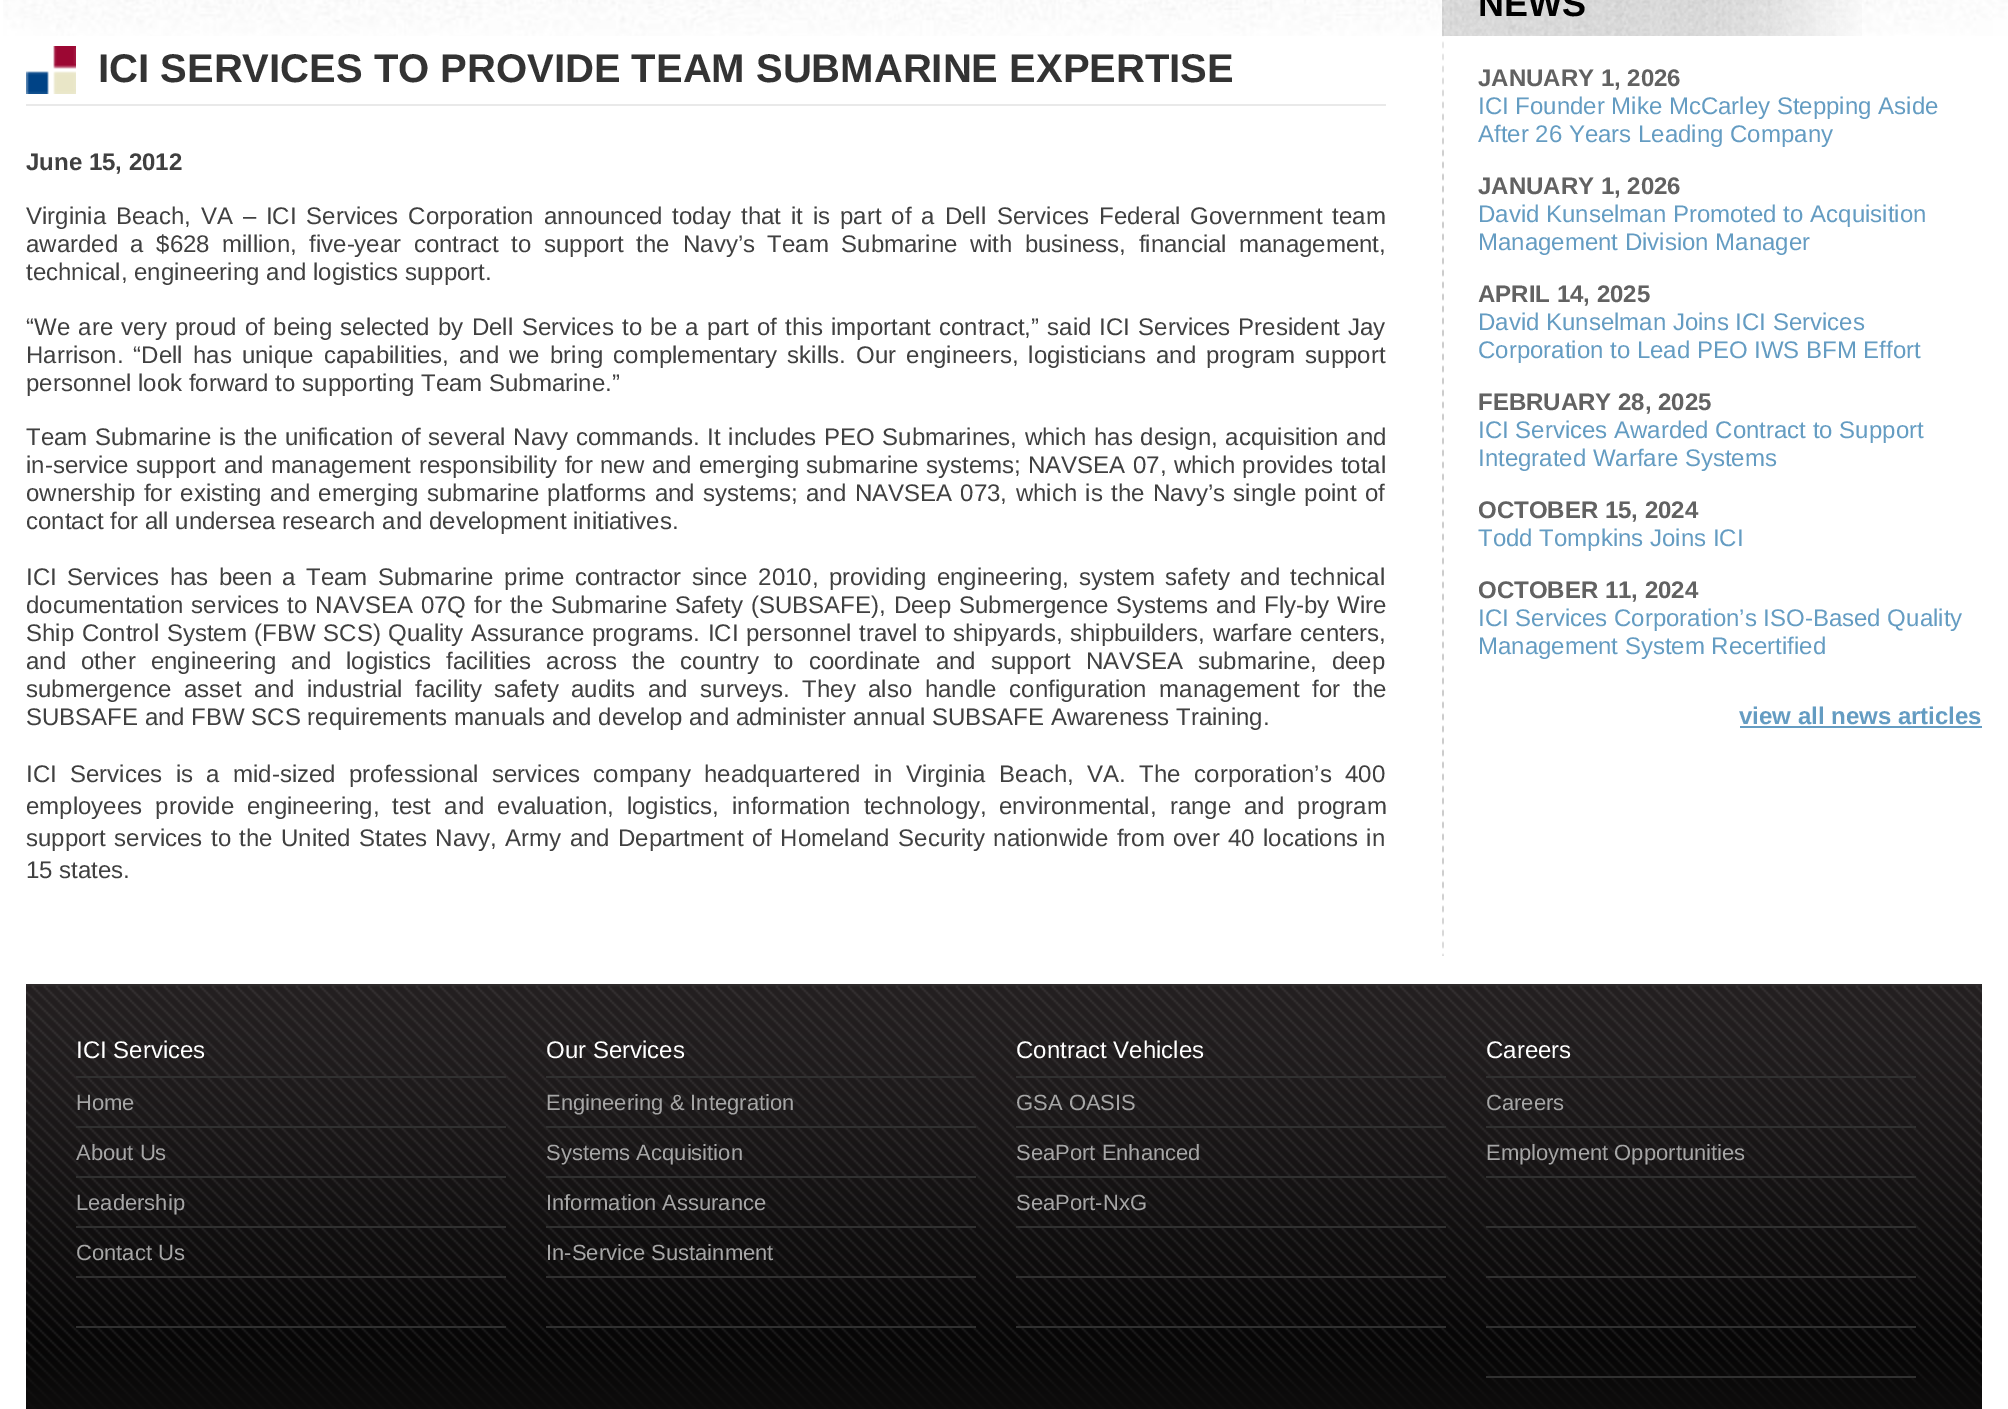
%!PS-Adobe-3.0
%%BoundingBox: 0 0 2008 1409
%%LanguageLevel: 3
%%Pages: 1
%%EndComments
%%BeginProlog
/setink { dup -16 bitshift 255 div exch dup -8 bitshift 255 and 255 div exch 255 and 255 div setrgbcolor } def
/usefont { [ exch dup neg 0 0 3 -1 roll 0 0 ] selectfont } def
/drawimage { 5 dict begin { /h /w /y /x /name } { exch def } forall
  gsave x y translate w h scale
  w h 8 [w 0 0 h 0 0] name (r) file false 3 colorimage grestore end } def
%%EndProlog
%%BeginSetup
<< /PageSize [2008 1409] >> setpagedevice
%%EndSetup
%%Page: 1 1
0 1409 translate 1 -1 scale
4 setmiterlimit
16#FFFFFF setink
0 0 2008 1409 rectfill
(img1.raw) 3 0 2005 36 drawimage
(img2.raw) 26 46 50 48 drawimage
16#E9E9E9 setink
26 104 1360 2 rectfill
/LiberationSans-Bold 40 usefont
16#333333 setink
98 82 moveto (ICI SERVICES TO PROVIDE TEAM SUBMARINE EXPERTISE) show
/LiberationSans-Bold 24 usefont
16#404040 setink
26 170 moveto (June 15, 2012) show
/LiberationSans-Regular 24 usefont
26 224 moveto 3.25 0 32 (Virginia Beach, VA – ICI Services Corporation announced today that it is part of a Dell) widthshow
997 224 moveto 3.25 0 32 (Services Federal Government team) widthshow
26 252 moveto 5.75 0 32 (awarded a $628 million, five-year contract to support the) widthshow
683 252 moveto 5.75 0 32 (Navy’s Team Submarine with business, financial management,) widthshow
26 280 moveto (technical, engineering and logistics support.) show
26 335 moveto 1.7 0 32 (“We are very proud of being selected by Dell Services to be a part of this important) widthshow
939 335 moveto 1.5 0 32 (contract,” said ICI Services President Jay) widthshow
26 363 moveto 3.4 0 32 (Harrison. “Dell has unique capabilities,) widthshow
459 363 moveto 3.4 0 32 (and we bring complementary skills. Our engineers, logisticians and program support) widthshow
26 391 moveto (personnel look forward to supporting Team Submarine.”) show
26 445 moveto 1 0 32 (Team Submarine is the unification of several Navy commands. It includes PEO Submarines, which) widthshow
1094 445 moveto 1 0 32 (has design, acquisition and) widthshow
26 473 moveto 0.75 0 32 (in-service support and management responsibility for new and) widthshow
699 473 moveto 0.75 0 32 (emerging submarine systems; NAVSEA 07, which provides total) widthshow
26 501 moveto 1.75 0 32 (ownership for existing and emerging) widthshow
427 501 moveto 1.75 0 32 (submarine platforms and systems; and NAVSEA 073, which is the Navy’s single point of) widthshow
26 529 moveto (contact for all undersea research and development initiatives.) show
26 585 moveto 3.75 0 32 (ICI Services has been a) widthshow
306 585 moveto 3.75 0 32 (Team Submarine prime contractor since 2010, providing engineering, system safety and technical) widthshow
26 613 moveto 1.25 0 32 (documentation services to NAVSEA 07Q for the Submarine Safety \(SUBSAFE\), Deep Submergence) widthshow
1116 613 moveto 1.25 0 32 (Systems and Fly-by Wire) widthshow
26 641 moveto 1 0 32 (Ship Control System \(FBW SCS\) Quality Assurance programs. ICI personnel) widthshow
859 641 moveto 1 0 32 (travel to shipyards, shipbuilders, warfare centers,) widthshow
26 669 moveto 8.25 0 32 (and other engineering and logistics) widthshow
446 669 moveto 8.25 0 32 (facilities across the country to coordinate and support NAVSEA submarine, deep) widthshow
26 697 moveto 5.9 0 32 (submergence asset) widthshow
254 697 moveto 5.9 0 32 (and industrial facility safety audits and surveys. They also handle configuration management for) widthshow
1353 697 moveto (the) show
26 725 moveto (SUBSAFE and FBW SCS requirements manuals and develop and administer annual SUBSAFE Awareness Training.) show
26 782 moveto 6.75 0 32 (ICI Services is a mid-sized) widthshow
349 782 moveto 6.75 0 32 (professional services company headquartered in Virginia Beach, VA. The corporation’s 400) widthshow
26 814 moveto 6.5 0 32 (employees provide engineering, test and evaluation, logistics, information technology,) widthshow
999 814 moveto 6.5 0 32 (environmental, range and program) widthshow
26 846 moveto 1.75 0 32 (support services to the United States Navy, Army and Department) widthshow
752 846 moveto 1.75 0 32 (of Homeland Security nationwide from over 40 locations in) widthshow
26 878 moveto (15 states.) show
(img3.raw) 1442 6 2 950 drawimage
(img4.raw) 1442 0 420 36 drawimage
/LiberationSans-Bold 36 usefont
16#000000 setink
1478 16 moveto (NEWS) show
/LiberationSans-Bold 24 usefont
16#626262 setink
1478 86 moveto (JANUARY 1, 2026) show
/LiberationSans-Regular 24 usefont
16#649CC2 setink
1478 114 moveto (ICI Founder Mike McCarley Stepping Aside) show
1478 142 moveto (After 26 Years Leading Company) show
/LiberationSans-Bold 24 usefont
16#626262 setink
1478 194 moveto (JANUARY 1, 2026) show
/LiberationSans-Regular 24 usefont
16#649CC2 setink
1478 222 moveto (David Kunselman Promoted to Acquisition) show
1478 250 moveto (Management Division Manager) show
/LiberationSans-Bold 24 usefont
16#626262 setink
1478 302 moveto (APRIL 14, 2025) show
/LiberationSans-Regular 24 usefont
16#649CC2 setink
1478 330 moveto (David Kunselman Joins ICI Services) show
1478 358 moveto (Corporation to Lead PEO IWS BFM Effort) show
/LiberationSans-Bold 24 usefont
16#626262 setink
1478 410 moveto (FEBRUARY 28, 2025) show
/LiberationSans-Regular 24 usefont
16#649CC2 setink
1478 438 moveto (ICI Services Awarded Contract to Support) show
1478 466 moveto (Integrated Warfare Systems) show
/LiberationSans-Bold 24 usefont
16#626262 setink
1478 518 moveto (OCTOBER 15, 2024) show
/LiberationSans-Regular 24 usefont
16#649CC2 setink
1478 546 moveto (Todd Tompkins Joins ICI) show
/LiberationSans-Bold 24 usefont
16#626262 setink
1478 598 moveto (OCTOBER 11, 2024) show
/LiberationSans-Regular 24 usefont
16#649CC2 setink
1478 626 moveto (ICI Services Corporation’s ISO-Based Quality) show
1478 654 moveto (Management System Recertified) show
/LiberationSans-Bold 24 usefont
1739 724 moveto (view all news articles) show
1740 726 242 2 rectfill
(img5.raw) 26 984 1956 425 drawimage
16#303030 setink
76 1076 430 2 rectfill
/LiberationSans-Regular 24 usefont
16#FFFFFF setink
76 1058 moveto (ICI Services) show
16#303030 setink
76 1126 430 2 rectfill
/LiberationSans-Regular 22 usefont
16#A6A6A6 setink
76 1110 moveto (Home) show
16#303030 setink
76 1176 430 2 rectfill
16#A6A6A6 setink
76 1160 moveto (About Us) show
16#303030 setink
76 1226 430 2 rectfill
16#A6A6A6 setink
76 1210 moveto (Leadership) show
16#303030 setink
76 1276 430 2 rectfill
16#A6A6A6 setink
76 1260 moveto (Contact Us) show
16#303030 setink
76 1326 430 2 rectfill
546 1076 430 2 rectfill
/LiberationSans-Regular 24 usefont
16#FFFFFF setink
546 1058 moveto (Our Services) show
16#303030 setink
546 1126 430 2 rectfill
/LiberationSans-Regular 22 usefont
16#A6A6A6 setink
546 1110 moveto (Engineering & Integration) show
16#303030 setink
546 1176 430 2 rectfill
16#A6A6A6 setink
546 1160 moveto (Systems Acquisition) show
16#303030 setink
546 1226 430 2 rectfill
16#A6A6A6 setink
546 1210 moveto (Information Assurance) show
16#303030 setink
546 1276 430 2 rectfill
16#A6A6A6 setink
546 1260 moveto (In-Service Sustainment) show
16#303030 setink
546 1326 430 2 rectfill
1016 1076 430 2 rectfill
/LiberationSans-Regular 24 usefont
16#FFFFFF setink
1016 1058 moveto (Contract Vehicles) show
16#303030 setink
1016 1126 430 2 rectfill
/LiberationSans-Regular 22 usefont
16#A6A6A6 setink
1016 1110 moveto (GSA OASIS) show
16#303030 setink
1016 1176 430 2 rectfill
16#A6A6A6 setink
1016 1160 moveto (SeaPort Enhanced) show
16#303030 setink
1016 1226 430 2 rectfill
16#A6A6A6 setink
1016 1210 moveto (SeaPort-NxG) show
[
    [1016 1276 430 2 16#303030]
    [1016 1326 430 2 16#303030]
    [1486 1076 430 2 16#303030]
] { aload pop setink rectfill } forall
/LiberationSans-Regular 24 usefont
16#FFFFFF setink
1486 1058 moveto (Careers) show
16#303030 setink
1486 1126 430 2 rectfill
/LiberationSans-Regular 22 usefont
16#A6A6A6 setink
1486 1110 moveto (Careers) show
16#303030 setink
1486 1176 430 2 rectfill
16#A6A6A6 setink
1486 1160 moveto (Employment Opportunities) show
[
    [1486 1226 430 2 16#303030]
    [1486 1276 430 2 16#303030]
    [1486 1326 430 2 16#303030]
    [1486 1376 430 2 16#303030]
] { aload pop setink rectfill } forall
showpage
%%EOF
